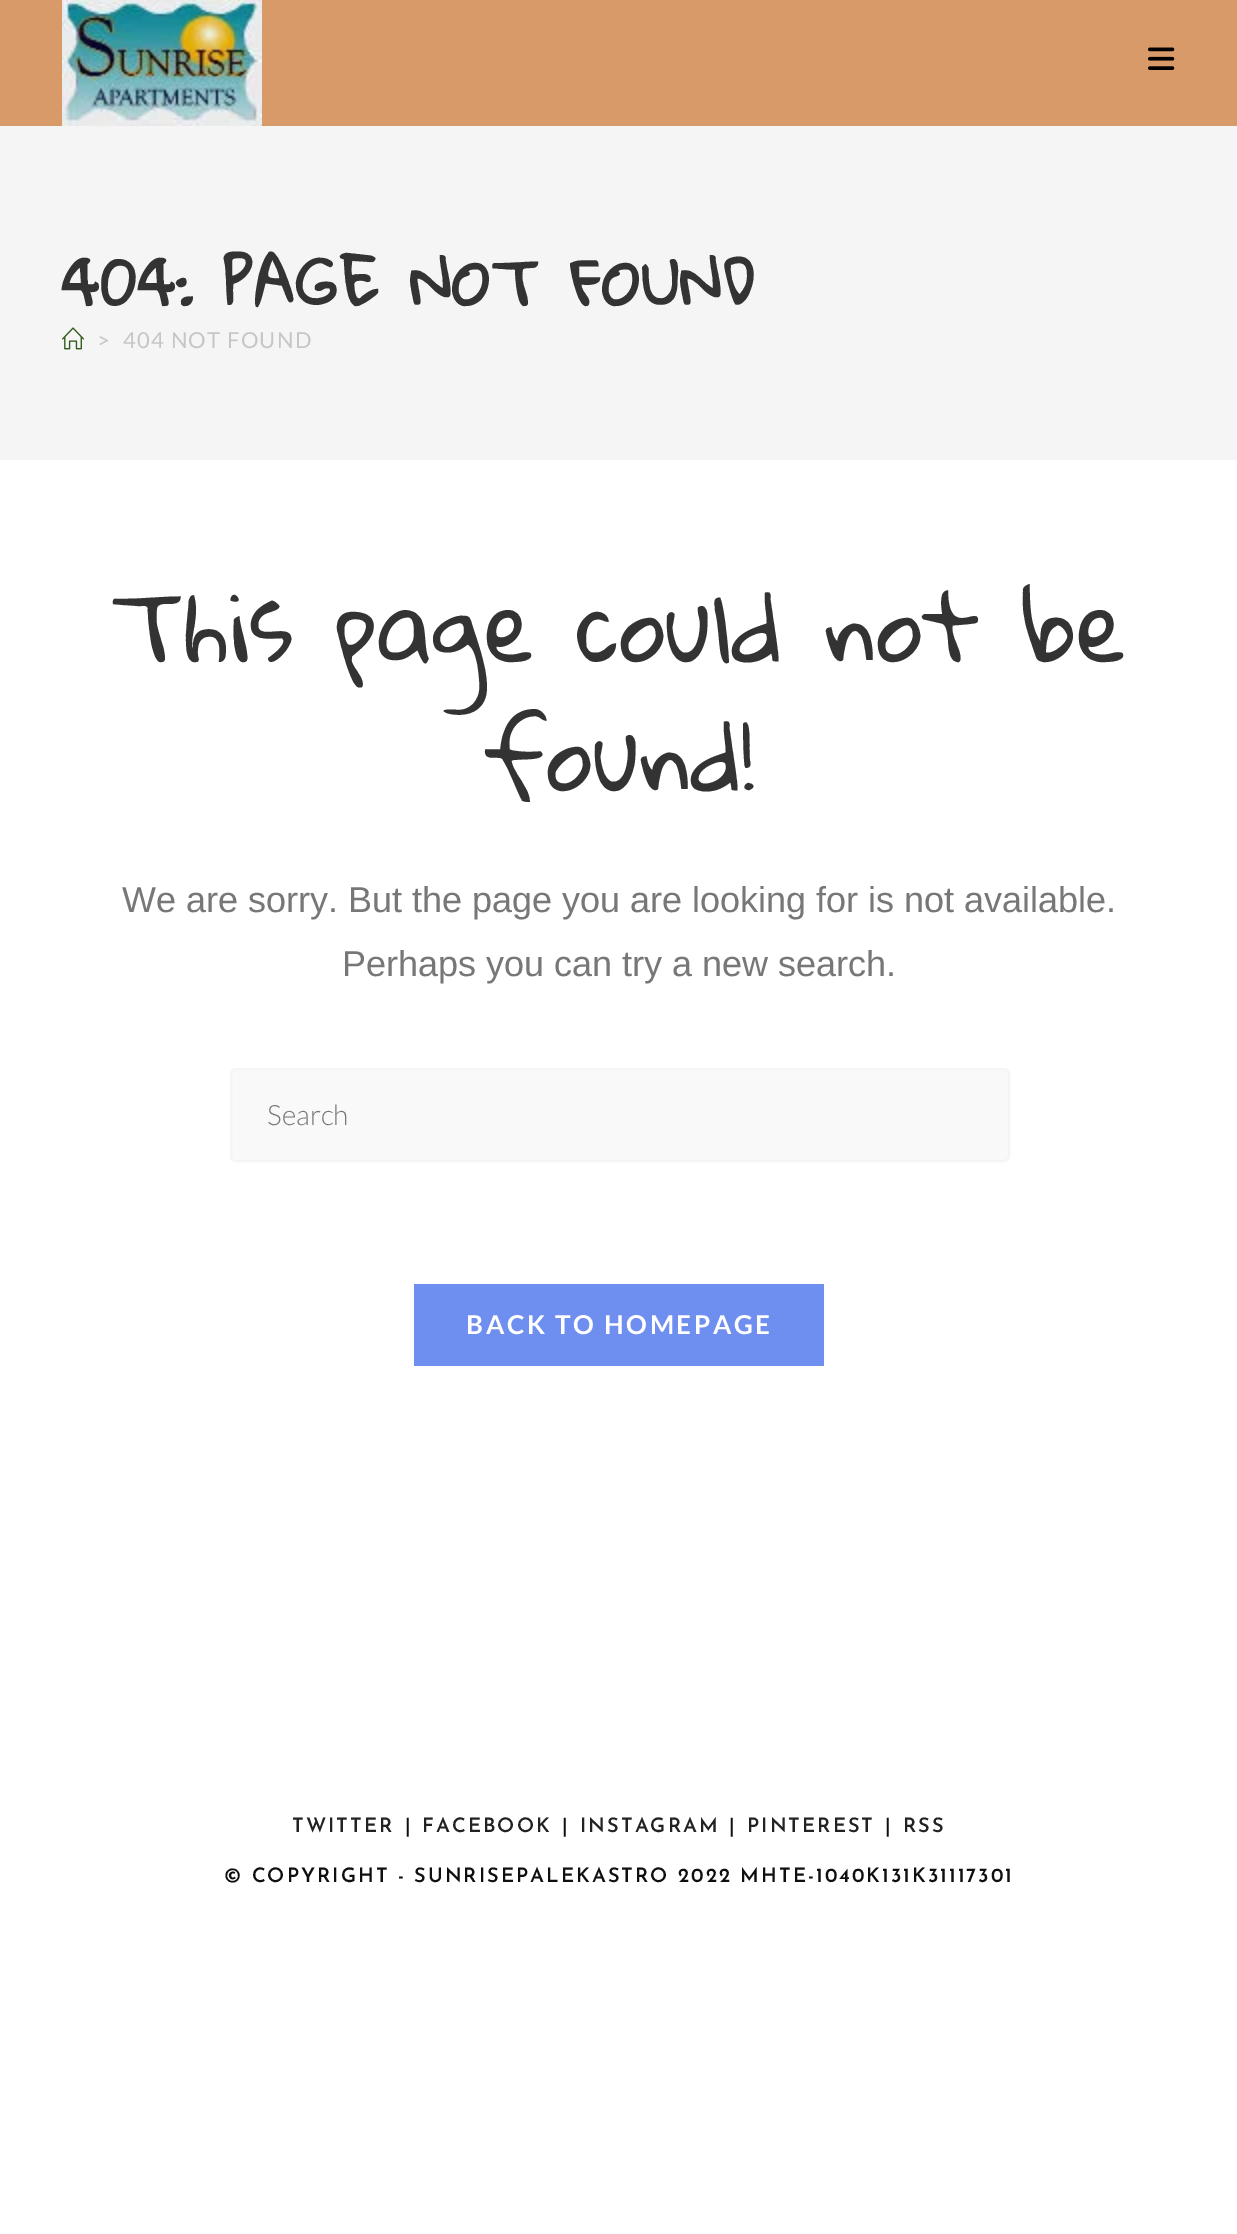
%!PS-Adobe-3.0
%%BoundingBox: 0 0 1237 2234
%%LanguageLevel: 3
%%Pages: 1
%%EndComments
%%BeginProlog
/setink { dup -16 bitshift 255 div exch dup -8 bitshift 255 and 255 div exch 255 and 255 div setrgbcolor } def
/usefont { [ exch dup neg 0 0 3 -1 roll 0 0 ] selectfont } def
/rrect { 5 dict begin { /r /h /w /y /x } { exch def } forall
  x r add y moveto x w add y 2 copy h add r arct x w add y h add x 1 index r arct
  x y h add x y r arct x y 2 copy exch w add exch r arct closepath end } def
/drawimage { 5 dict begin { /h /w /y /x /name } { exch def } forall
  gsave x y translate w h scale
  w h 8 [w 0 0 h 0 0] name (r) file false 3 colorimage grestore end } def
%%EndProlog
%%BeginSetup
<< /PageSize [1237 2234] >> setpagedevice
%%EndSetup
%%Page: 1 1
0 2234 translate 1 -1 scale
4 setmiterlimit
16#FFFFFF setink
0 0 1237 2234 rectfill
16#D99A69 setink
0 0 1237 126 rectfill
(img1.raw) 62 0 200 126 drawimage
(img2.raw) 1148 47 27 23 drawimage
16#F5F5F5 setink
0 126 1237 334 rectfill
/GloriaHallelujah-Bold 60 usefont
16#333333 setink
62 306 moveto 2 0 (404: PAGE NOT FOUND) ashow
(img3.raw) 62 327 22 23 drawimage
/Lato-Regular 22 usefont
16#C6C6C6 setink
97 348 moveto 1.25 0 (>) ashow
123 348 moveto 1.25 0 (404 NOT FOUND) ashow
/GloriaHallelujah-Regular 92 usefont
16#333333 setink
111 662 moveto (This page could not be) show
483 791 moveto (found!) show
/LiberationSans-Regular 36 usefont
16#777777 setink
122 912 moveto (We are sorry. But the page you are looking for is not available.) show
342 976 moveto (Perhaps you can try a new search.) show
16#F9F9F9 setink
231 1069 778 92 5 rrect gsave fill grestore
16#F5F5F5 setink
2 setlinewidth
stroke
/Lato-Light 28 usefont
16#777777 setink
267 1125 moveto (Search) show
16#6E8FEF setink
414 1284 410 82 rectfill
/Lato-Bold 26 usefont
16#FFFFFF setink
466 1334 moveto 2.6 0 (BACK TO HOMEPAGE) ashow
/JosefinSans-SemiBold 20 usefont
16#222222 setink
292 1832 moveto 2 0 (TWITTER) ashow
16#0F0F0F setink
405 1832 moveto 2 0 (|) ashow
16#222222 setink
422 1832 moveto 2 0 (FACEBOOK) ashow
16#0F0F0F setink
562 1832 moveto 2 0 (|) ashow
16#222222 setink
580 1832 moveto 2 0 (INSTAGRAM) ashow
16#0F0F0F setink
729 1832 moveto 2 0 (|) ashow
16#222222 setink
747 1832 moveto 2 0 (PINTEREST) ashow
16#0F0F0F setink
885 1832 moveto 2 0 (|) ashow
16#222222 setink
903 1832 moveto 2 0 (RSS) ashow
16#0F0F0F setink
224 1882 moveto 2 0 (© COPYRIGHT - SUNRISEPALEKASTRO 2022 MHTE-1040K131K31117301) ashow
showpage
%%EOF
